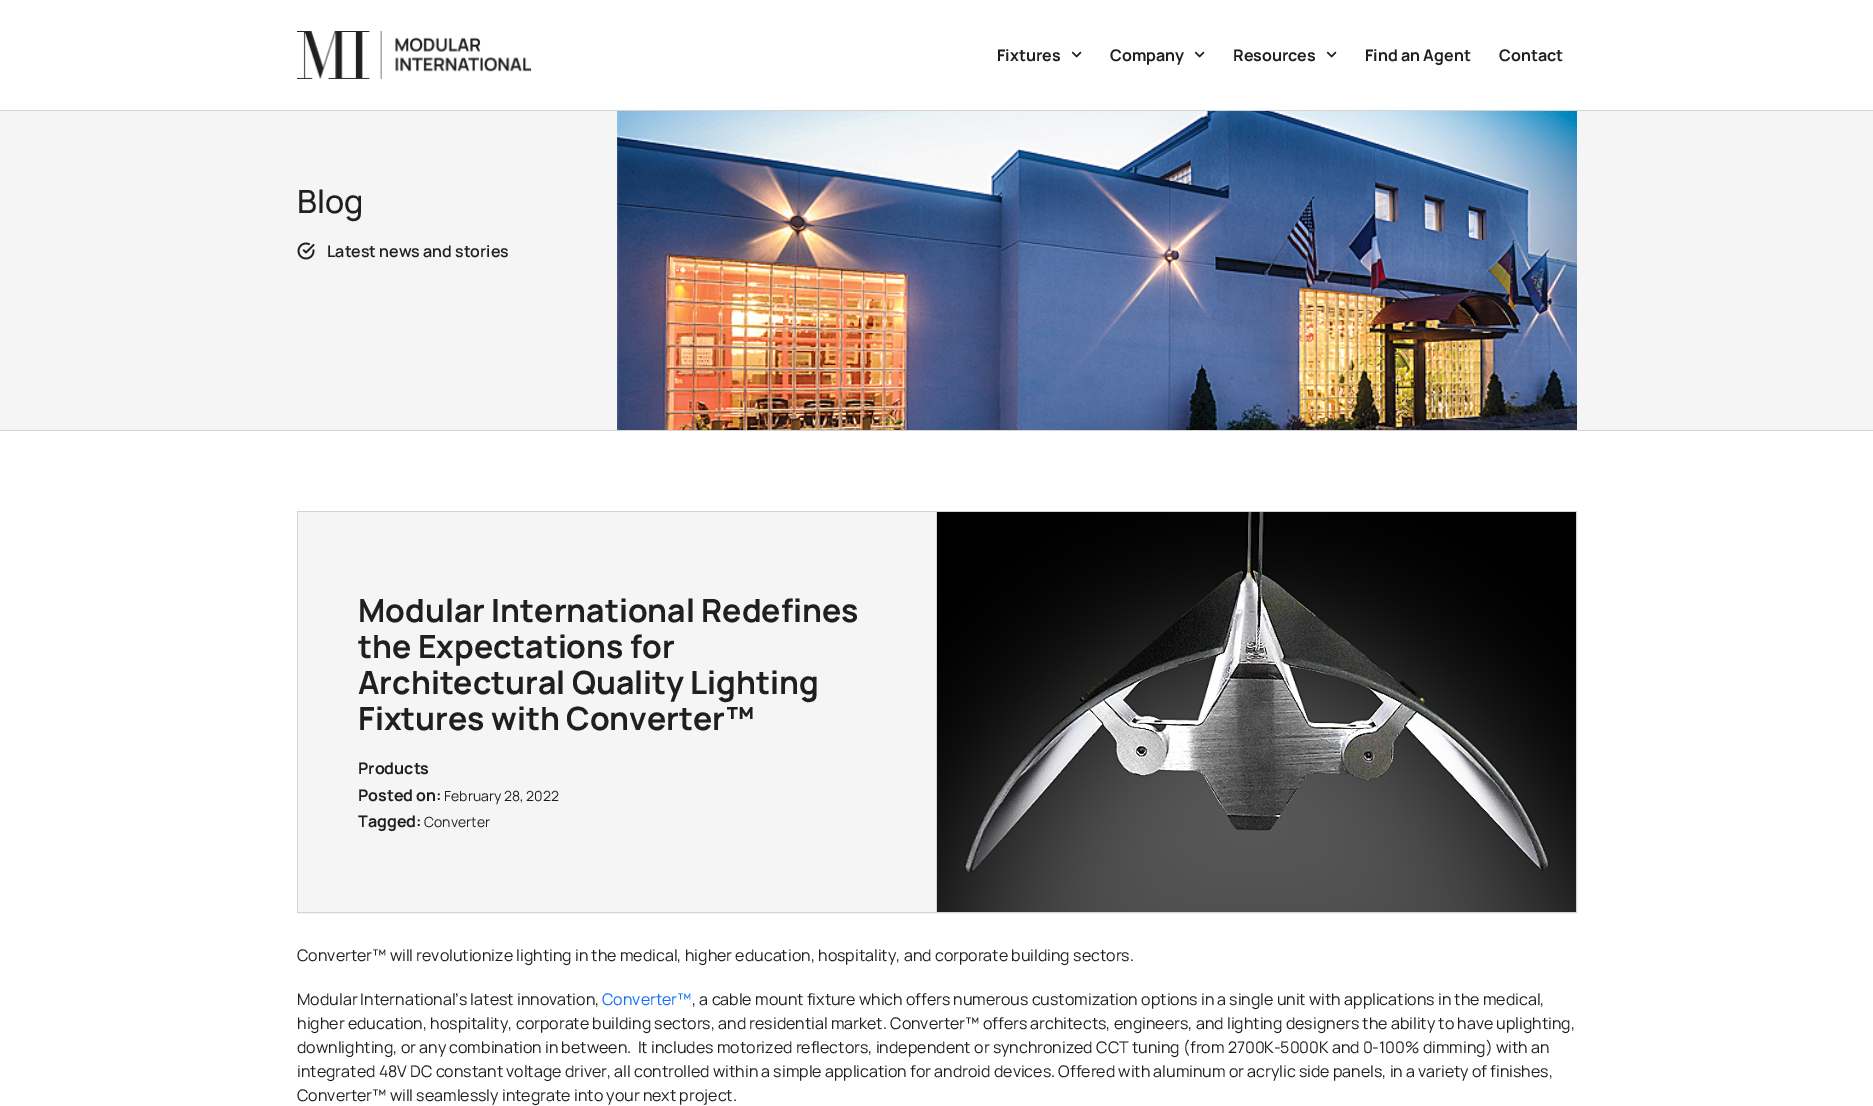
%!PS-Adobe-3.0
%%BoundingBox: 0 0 1873 1106
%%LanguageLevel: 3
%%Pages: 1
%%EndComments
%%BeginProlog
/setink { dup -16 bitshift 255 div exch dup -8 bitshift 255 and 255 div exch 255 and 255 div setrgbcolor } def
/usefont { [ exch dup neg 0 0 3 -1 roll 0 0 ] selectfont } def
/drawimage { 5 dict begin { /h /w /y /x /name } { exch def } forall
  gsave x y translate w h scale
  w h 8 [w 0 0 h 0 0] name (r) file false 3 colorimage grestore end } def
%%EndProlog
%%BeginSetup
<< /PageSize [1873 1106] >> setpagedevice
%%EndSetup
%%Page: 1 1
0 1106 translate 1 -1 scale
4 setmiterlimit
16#FFFFFF setink
0 0 1873 1106 rectfill
16#D4D4D4 setink
0 110 1873 1 rectfill
(img1.raw) 297 31 235 48 drawimage
/Manrope-Bold 16 usefont
16#1F1F1F setink
997 61 moveto (Fixtures) show
(img2.raw) 1071 51 11 7 drawimage
1110 61 moveto (Company) show
(img2.raw) 1194 51 11 7 drawimage
1233 61 moveto (Resources) show
(img2.raw) 1326 51 11 7 drawimage
1365 61 moveto (Find an Agent) show
1499 61 moveto (Contact) show
16#F5F5F5 setink
0 111 1873 319 rectfill
16#D4D4D4 setink
0 430 1873 1 rectfill
/Manrope-Medium 32 usefont
16#1F1F1F setink
297 213 moveto (Blog) show
(img3.raw) 297 242 18 18 drawimage
/Manrope-SemiBold 16 usefont
327 257 moveto (Latest news and stories) show
(img4.raw) 617 111 960 319 drawimage
16#D4D4D4 setink
297.5 511.5 1279 401 rectstroke
16#F5F5F5 setink
298 512 638 400 rectfill
16#D4D4D4 setink
936 512 1 400 rectfill
/Manrope-Bold 32 usefont
16#1F1F1F setink
[
    [(Modular International Redefines) 358 622]
    [(the Expectations for) 358 658]
    [(Architectural Quality Lighting) 358 694]
    [(Fixtures with Converter™) 358 730]
] { aload pop moveto show } forall
/Manrope-Bold 16 usefont
358 774 moveto (Products) show
358 801 moveto (Posted on:) show
/Manrope-Regular 14 usefont
444 801 moveto (February 28, 2022) show
/Manrope-Bold 16 usefont
358 827 moveto (Tagged:) show
/Manrope-Regular 14 usefont
424 827 moveto (Converter) show
(img5.raw) 937 512 639 400 drawimage
/Manrope-Regular 16 usefont
297 961 moveto (Converter™ will revolutionize lighting in the medical, higher education, hospitality, and corporate building sectors.) show
297 1005 moveto (Modular International’s latest innovation,) show
16#0D6EFD setink
602 1005 moveto (Converter™) show
16#1F1F1F setink
[
    [(, a cable mount fixture which offers numerous customization options in a single unit with applications in the medical,) 692 1005]
    [(higher education, hospitality, corporate building sectors, and residential market. Converter™ offers architects, engineers, and lighting designers the ability to have uplighting,) 297 1029]
    [(downlighting, or any combination in between.  It includes motorized reflectors, independent or synchronized CCT tuning \(from 2700K-5000K and 0-100% dimming\) with an) 297 1053]
    [(integrated 48V DC constant voltage driver, all controlled within a simple application for android devices. Offered with aluminum or acrylic side panels, in a variety of finishes,) 297 1077]
    [(Converter™ will seamlessly integrate into your next project.) 297 1101]
] { aload pop moveto show } forall
showpage
%%EOF
